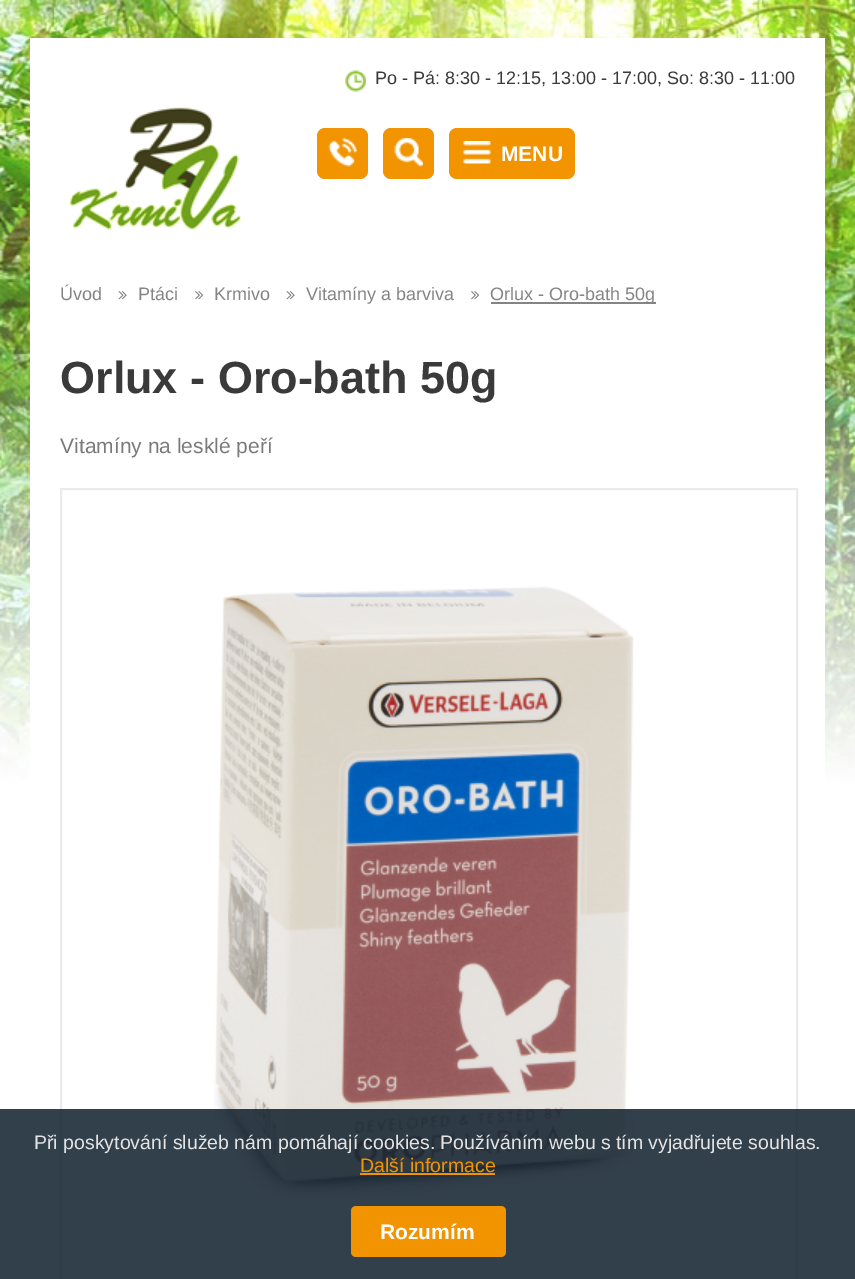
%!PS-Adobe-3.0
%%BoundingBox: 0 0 855 1279
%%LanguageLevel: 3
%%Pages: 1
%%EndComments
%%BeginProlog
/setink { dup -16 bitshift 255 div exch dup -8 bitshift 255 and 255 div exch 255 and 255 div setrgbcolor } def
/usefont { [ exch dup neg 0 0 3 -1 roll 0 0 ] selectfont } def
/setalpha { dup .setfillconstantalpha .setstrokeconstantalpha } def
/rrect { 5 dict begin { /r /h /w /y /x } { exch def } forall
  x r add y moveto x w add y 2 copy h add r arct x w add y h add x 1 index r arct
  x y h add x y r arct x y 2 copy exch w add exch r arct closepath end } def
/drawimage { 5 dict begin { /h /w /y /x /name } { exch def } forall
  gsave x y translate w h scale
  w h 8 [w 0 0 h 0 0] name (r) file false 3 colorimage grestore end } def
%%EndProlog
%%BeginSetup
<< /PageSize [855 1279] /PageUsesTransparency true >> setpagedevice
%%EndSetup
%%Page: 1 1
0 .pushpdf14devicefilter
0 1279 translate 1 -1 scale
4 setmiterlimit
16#FFFFFF setink
0 0 855 1279 rectfill
(img1.raw) 0 0 855 785 drawimage
30 38 795 747 rectfill
(img2.raw) 345 70 21 22 drawimage
/LiberationSans-Regular 18 usefont
16#3A3A3A setink
375 84 moveto (Po - Pá: 8:30 - 12:15, 13:00 - 17:00, So: 8:30 - 11:00) show
(img3.raw) 69 107 173 123 drawimage
16#F29400 setink
317 128 51 51 8 rrect fill
(img4.raw) 328 138 29 29 drawimage
383 128 51 51 8 rrect fill
(img5.raw) 394 138 29 29 drawimage
449 128 126 51 8 rrect fill
(img6.raw) 463 141 28 23 drawimage
/LiberationSans-Bold 21 usefont
16#FFFFFF setink
501 161 moveto (MENU) show
/LiberationSans-Regular 18 usefont
16#848484 setink
60 300 moveto (Úvod) show
(img7.raw) 118 291 9 9 drawimage
138 300 moveto (Ptáci) show
(img8.raw) 195 291 9 9 drawimage
214 300 moveto (Krmivo) show
(img7.raw) 286 291 9 9 drawimage
306 300 moveto (Vitamíny a barviva) show
(img8.raw) 471 291 9 9 drawimage
491 302 165 2 rectfill
490 300 moveto (Orlux - Oro-bath 50g) show
/LiberationSans-Bold 45 usefont
16#3A3A3A setink
60 393 moveto (Orlux - Oro-bath 50g) show
/LiberationSans-Regular 21 usefont
16#7A7A7A setink
60 453 moveto (Vitamíny na lesklé peří) show
16#EBEBEB setink
2 setlinewidth
61 489 736 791 rectstroke
(img9.raw) 214 586 420 611 drawimage
0.85 setalpha
16#0E1E2B setink
0 1109 855 170 rectfill
/LiberationSans-Regular 19.5 usefont
1 setalpha
16#E4E4E4 setink
34 1149 moveto (Při poskytování služeb nám pomáhají cookies. Používáním webu s tím vyjadřujete souhlas.) show
16#F29400 setink
360 1172 moveto (Další informace) show
360 1173 135 2 rectfill
351 1206 155 51 5 rrect fill
/LiberationSans-Bold 21 usefont
16#FFFFFF setink
380 1239 moveto (Rozumím) show
.poppdf14devicefilter showpage
%%EOF
